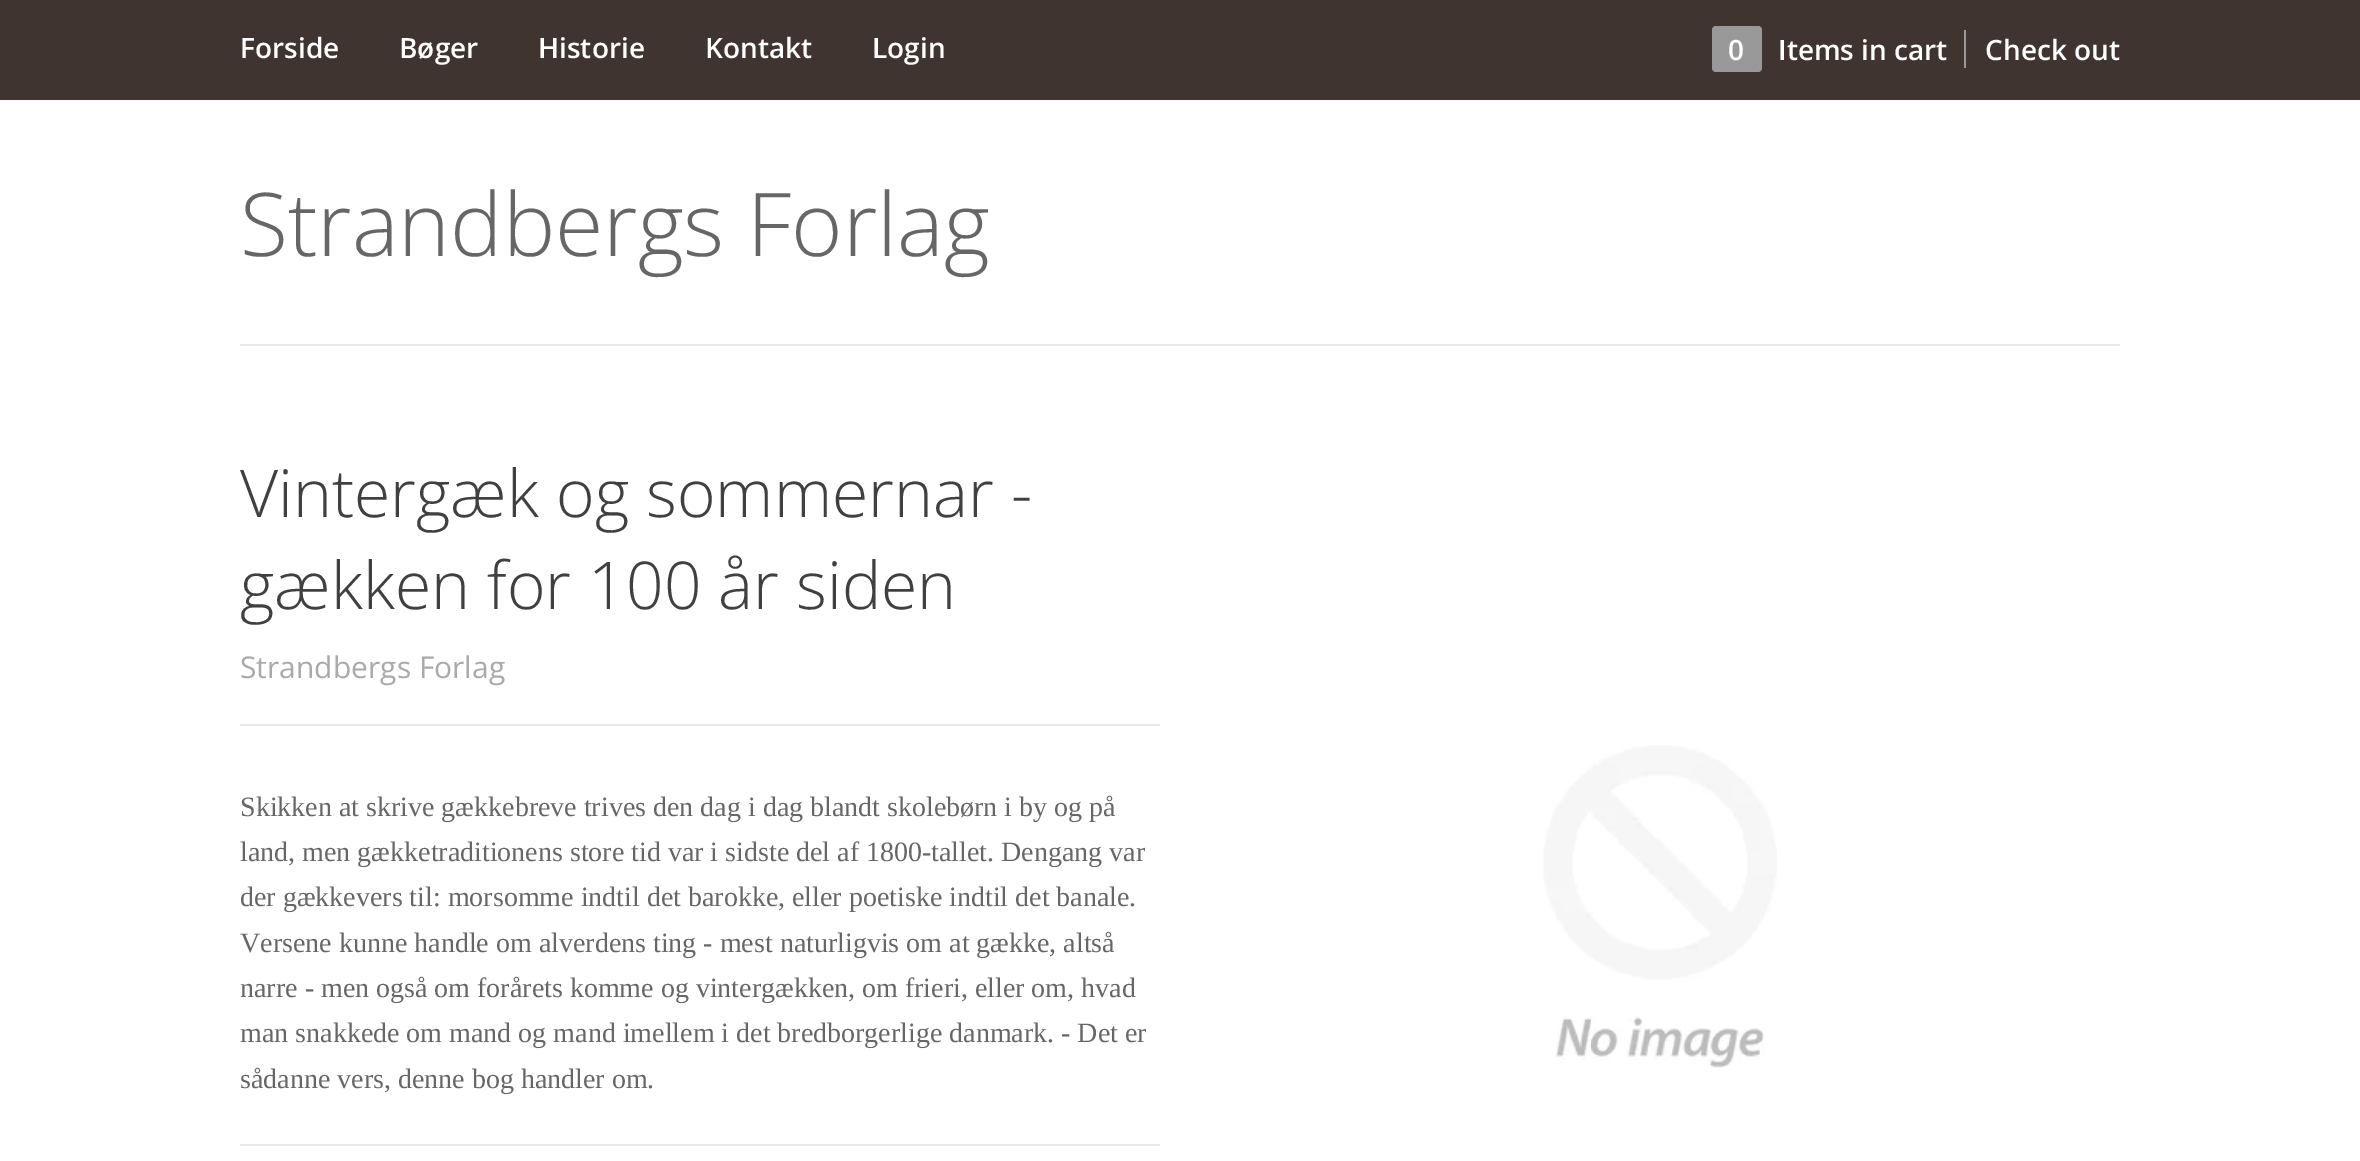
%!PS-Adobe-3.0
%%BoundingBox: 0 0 2360 1161
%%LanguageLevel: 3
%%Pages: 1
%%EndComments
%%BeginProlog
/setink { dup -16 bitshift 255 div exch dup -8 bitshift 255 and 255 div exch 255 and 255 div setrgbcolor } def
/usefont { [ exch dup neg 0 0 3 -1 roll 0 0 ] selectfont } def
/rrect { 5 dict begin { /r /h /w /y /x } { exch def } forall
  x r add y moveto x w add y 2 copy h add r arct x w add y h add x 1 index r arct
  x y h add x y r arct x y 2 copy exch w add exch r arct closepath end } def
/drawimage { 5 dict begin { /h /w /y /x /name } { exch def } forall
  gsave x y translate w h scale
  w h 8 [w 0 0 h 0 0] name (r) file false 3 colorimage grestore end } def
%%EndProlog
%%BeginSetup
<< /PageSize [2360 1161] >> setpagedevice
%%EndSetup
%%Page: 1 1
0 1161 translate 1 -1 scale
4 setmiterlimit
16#FFFFFF setink
0 0 2360 1161 rectfill
16#403430 setink
0 0 2360 100 rectfill
/OpenSans-SemiBold 28 usefont
16#FFFFFF setink
[
    [(Forside) 240 58]
    [(Bøger) 399 58]
    [(Historie) 538 58]
    [(Kontakt) 705 58]
    [(Login) 872 58]
] { aload pop moveto show } forall
16#999999 setink
1712 26 50 46 4 rrect fill
16#FFFFFF setink
[
    [(0) 1728 60]
    [(Items in cart) 1778 60]
    [(Check out) 1985 60]
] { aload pop moveto show } forall
16#999999 setink
1964 30 2 38 rectfill
16#E8E8E8 setink
240 344 1880 2 rectfill
/OpenSans-Light 88 usefont
16#666666 setink
240 256 moveto (Strandbergs Forlag) show
16#E8E8E8 setink
240 724 920 2 rectfill
/OpenSans-Light 66 usefont
16#404040 setink
240 517 moveto (Vintergæk og sommernar -) show
240 609 moveto (gækken for 100 år siden) show
/OpenSans-Regular 30 usefont
16#AAAAAA setink
240 678 moveto (Strandbergs Forlag) show
/LiberationSerif-Regular 28 usefont
16#666666 setink
[
    [(Skikken at skrive gækkebreve trives den dag i dag blandt skolebørn i by og på) 240 816]
    [(land, men gækketraditionens store tid var i sidste del af 1800-tallet. Dengang var) 240 861]
    [(der gækkevers til: morsomme indtil det barokke, eller poetiske indtil det banale.) 240 906]
    [(Versene kunne handle om alverdens ting - mest naturligvis om at gække, altså) 240 952]
    [(narre - men også om forårets komme og vintergækken, om frieri, eller om, hvad) 240 997]
    [(man snakkede om mand og mand imellem i det bredborgerlige danmark. - Det er) 240 1042]
    [(sådanne vers, denne bog handler om.) 240 1088]
] { aload pop moveto show } forall
16#E8E8E8 setink
240 1144 920 2 rectfill
(img1.raw) 1543 745 234 323 drawimage
showpage
%%EOF
